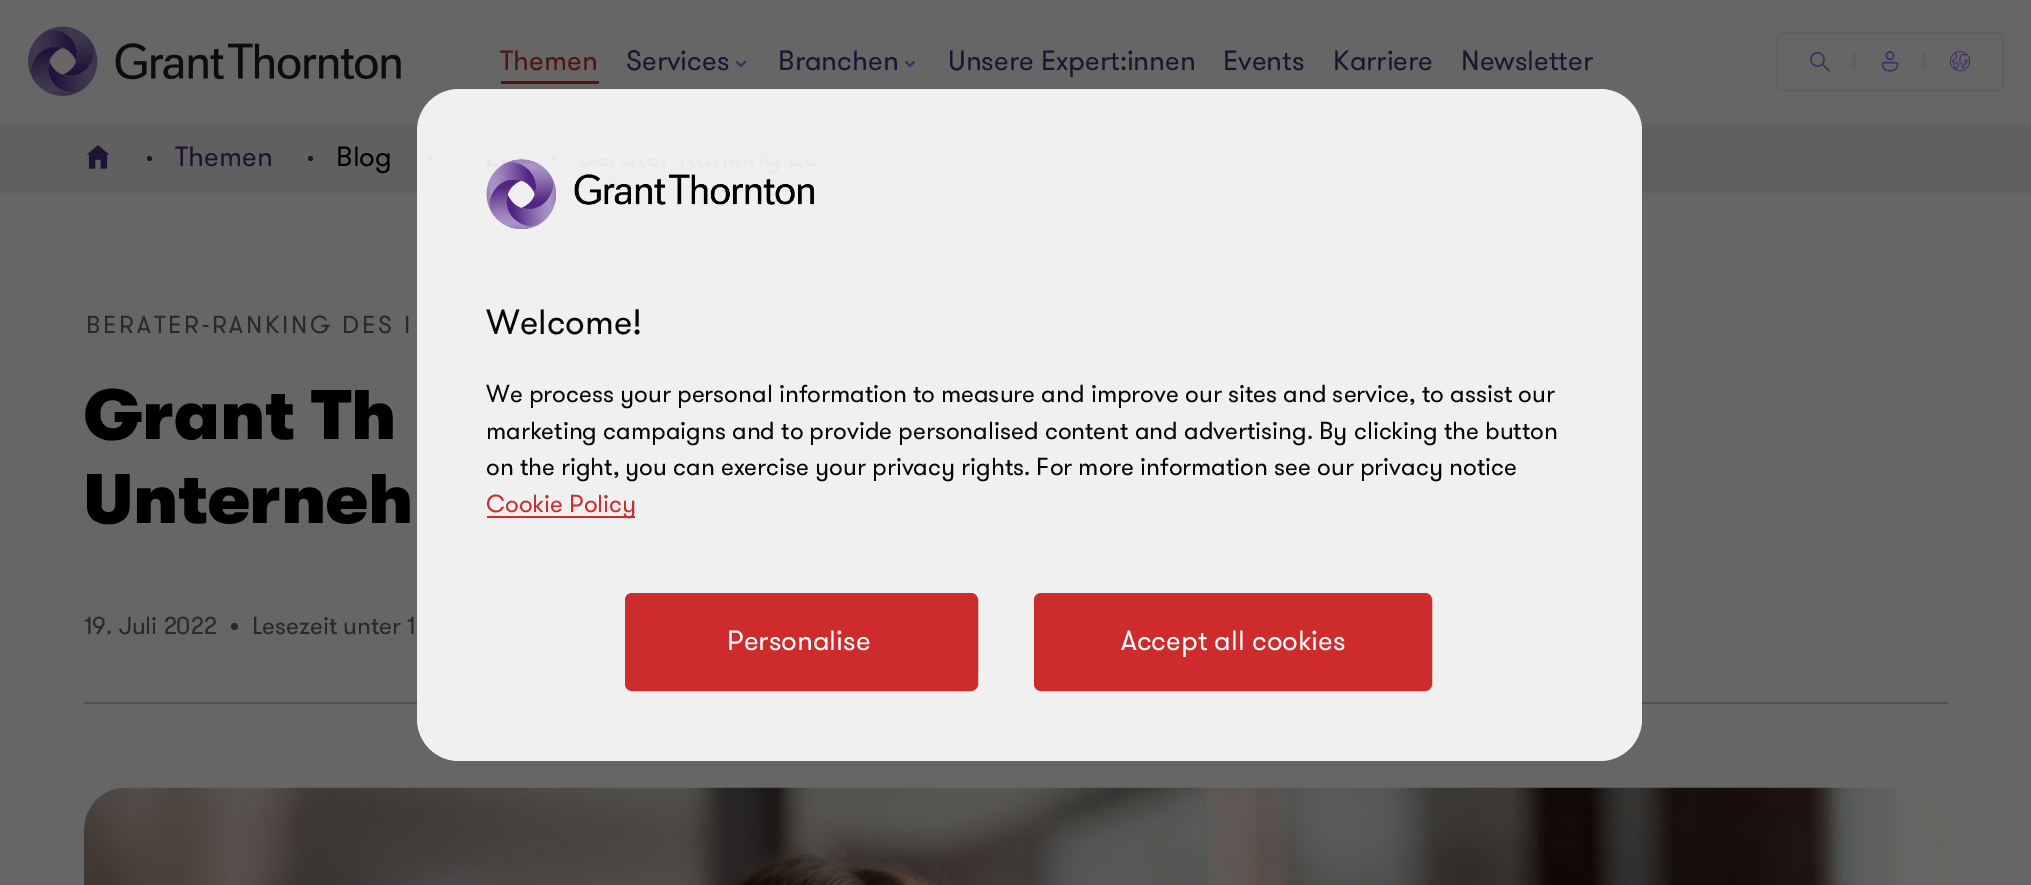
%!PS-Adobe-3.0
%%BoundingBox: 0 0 2031 885
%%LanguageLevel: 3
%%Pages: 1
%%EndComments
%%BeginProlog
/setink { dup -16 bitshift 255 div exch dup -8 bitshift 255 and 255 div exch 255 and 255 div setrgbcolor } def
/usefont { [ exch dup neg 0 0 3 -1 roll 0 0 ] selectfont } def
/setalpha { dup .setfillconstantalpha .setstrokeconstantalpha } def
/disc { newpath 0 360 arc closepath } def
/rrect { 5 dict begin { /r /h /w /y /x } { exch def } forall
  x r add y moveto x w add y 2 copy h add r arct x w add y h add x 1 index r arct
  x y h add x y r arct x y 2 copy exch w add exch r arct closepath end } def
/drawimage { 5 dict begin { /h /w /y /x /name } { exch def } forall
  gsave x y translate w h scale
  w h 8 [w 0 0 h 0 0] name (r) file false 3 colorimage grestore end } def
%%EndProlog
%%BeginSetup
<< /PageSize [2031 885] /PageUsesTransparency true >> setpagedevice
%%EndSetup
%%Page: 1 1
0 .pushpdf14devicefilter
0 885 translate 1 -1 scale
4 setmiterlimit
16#616060 setink
0 0 2031 885 rectfill
16#666666 setink
0 0 2031 123 rectfill
(img1.raw) 28 26 373 70 drawimage
/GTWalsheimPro-Regular 28 usefont
16#521212 setink
500 70 moveto (Themen) show
501 81 98 3 rectfill
16#201233 setink
626 70 moveto (Services) show
16#402C66 setink
2 setlinewidth
1 setlinecap
737 62 moveto 741 66 lineto 745 62 lineto stroke
16#201233 setink
778 70 moveto (Branchen) show
16#402C66 setink
906 62 moveto 910 66 lineto 914 62 lineto stroke
16#201233 setink
[
    [(Unsere Expert:innen) 948 70]
    [(Events) 1223 70]
    [(Karriere) 1333 70]
    [(Newsletter) 1461 70]
] { aload pop moveto show } forall
16#61605F setink
0 setlinecap
1777 33 226 57 6 rrect stroke
(img2.raw) 1810 52 20 20 drawimage
1852 53 4 17 rectfill
(img3.raw) 1881 51 18 21 drawimage
1922 53 4 17 rectfill
(img4.raw) 1950 51 21 21 drawimage
(img5.raw) 86 145 24 24 drawimage
16#201233 setink
149.5 158.5 2.5 disc fill
175 166 moveto (Themen) show
310.5 158.5 2.5 disc fill
16#000000 setink
336 166 moveto (Blog) show
16#201233 setink
429.5 158.5 2.5 disc fill
552.5 158.5 2.5 disc fill
16#666666 setink
0 193 2031 692 rectfill
16#524E4C setink
84 702 1864 2 rectfill
/GTWalsheimPro-Regular 24.5 usefont
16#292929 setink
86 333 moveto 2.8 0 (BERATER-RANKING DES I) ashow
/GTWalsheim-ExtraBold 70 usefont
16#000000 setink
84 439 moveto (Grant Th) show
84 523 moveto (Unterneh) show
/GTWalsheimPro-Regular 24.5 usefont
16#292929 setink
84 634 moveto (19. Juli 2022) show
234.5 626.5 3.5 disc fill
252 634 moveto (Lesezeit unter 1) show
(img6.raw) 84 787 1864 98 drawimage
0.9 setalpha
16#FFFFFF setink
417 89 1225 672 42 rrect fill
1 setalpha
(img7.raw) 486 159 328 70 drawimage
/GTWalsheimPro-Regular 35 usefont
16#070707 setink
486 334 moveto (Welcome!) show
/GTWalsheimPro-Regular 24.5 usefont
[
    [(We process your personal information to measure and improve our sites and service, to assist our) 486 402]
    [(marketing campaigns and to provide personalised content and advertising. By clicking the button) 486 439]
    [(on the right, you can exercise your privacy rights. For more information see our privacy notice) 486 475]
] { aload pop moveto show } forall
16#CE2C2C setink
487 516 148 2 rectfill
486 512 moveto (Cookie Policy) show
627 595 349 94 5 rrect gsave fill grestore
4 setlinewidth
stroke
/GTWalsheimPro-Regular 28 usefont
16#FFFFFF setink
727 650 moveto (Personalise) show
16#CE2C2C setink
1036 595 394 94 5 rrect gsave fill grestore
stroke
16#FFFFFF setink
1121 650 moveto (Accept all cookies) show
.poppdf14devicefilter showpage
%%EOF
